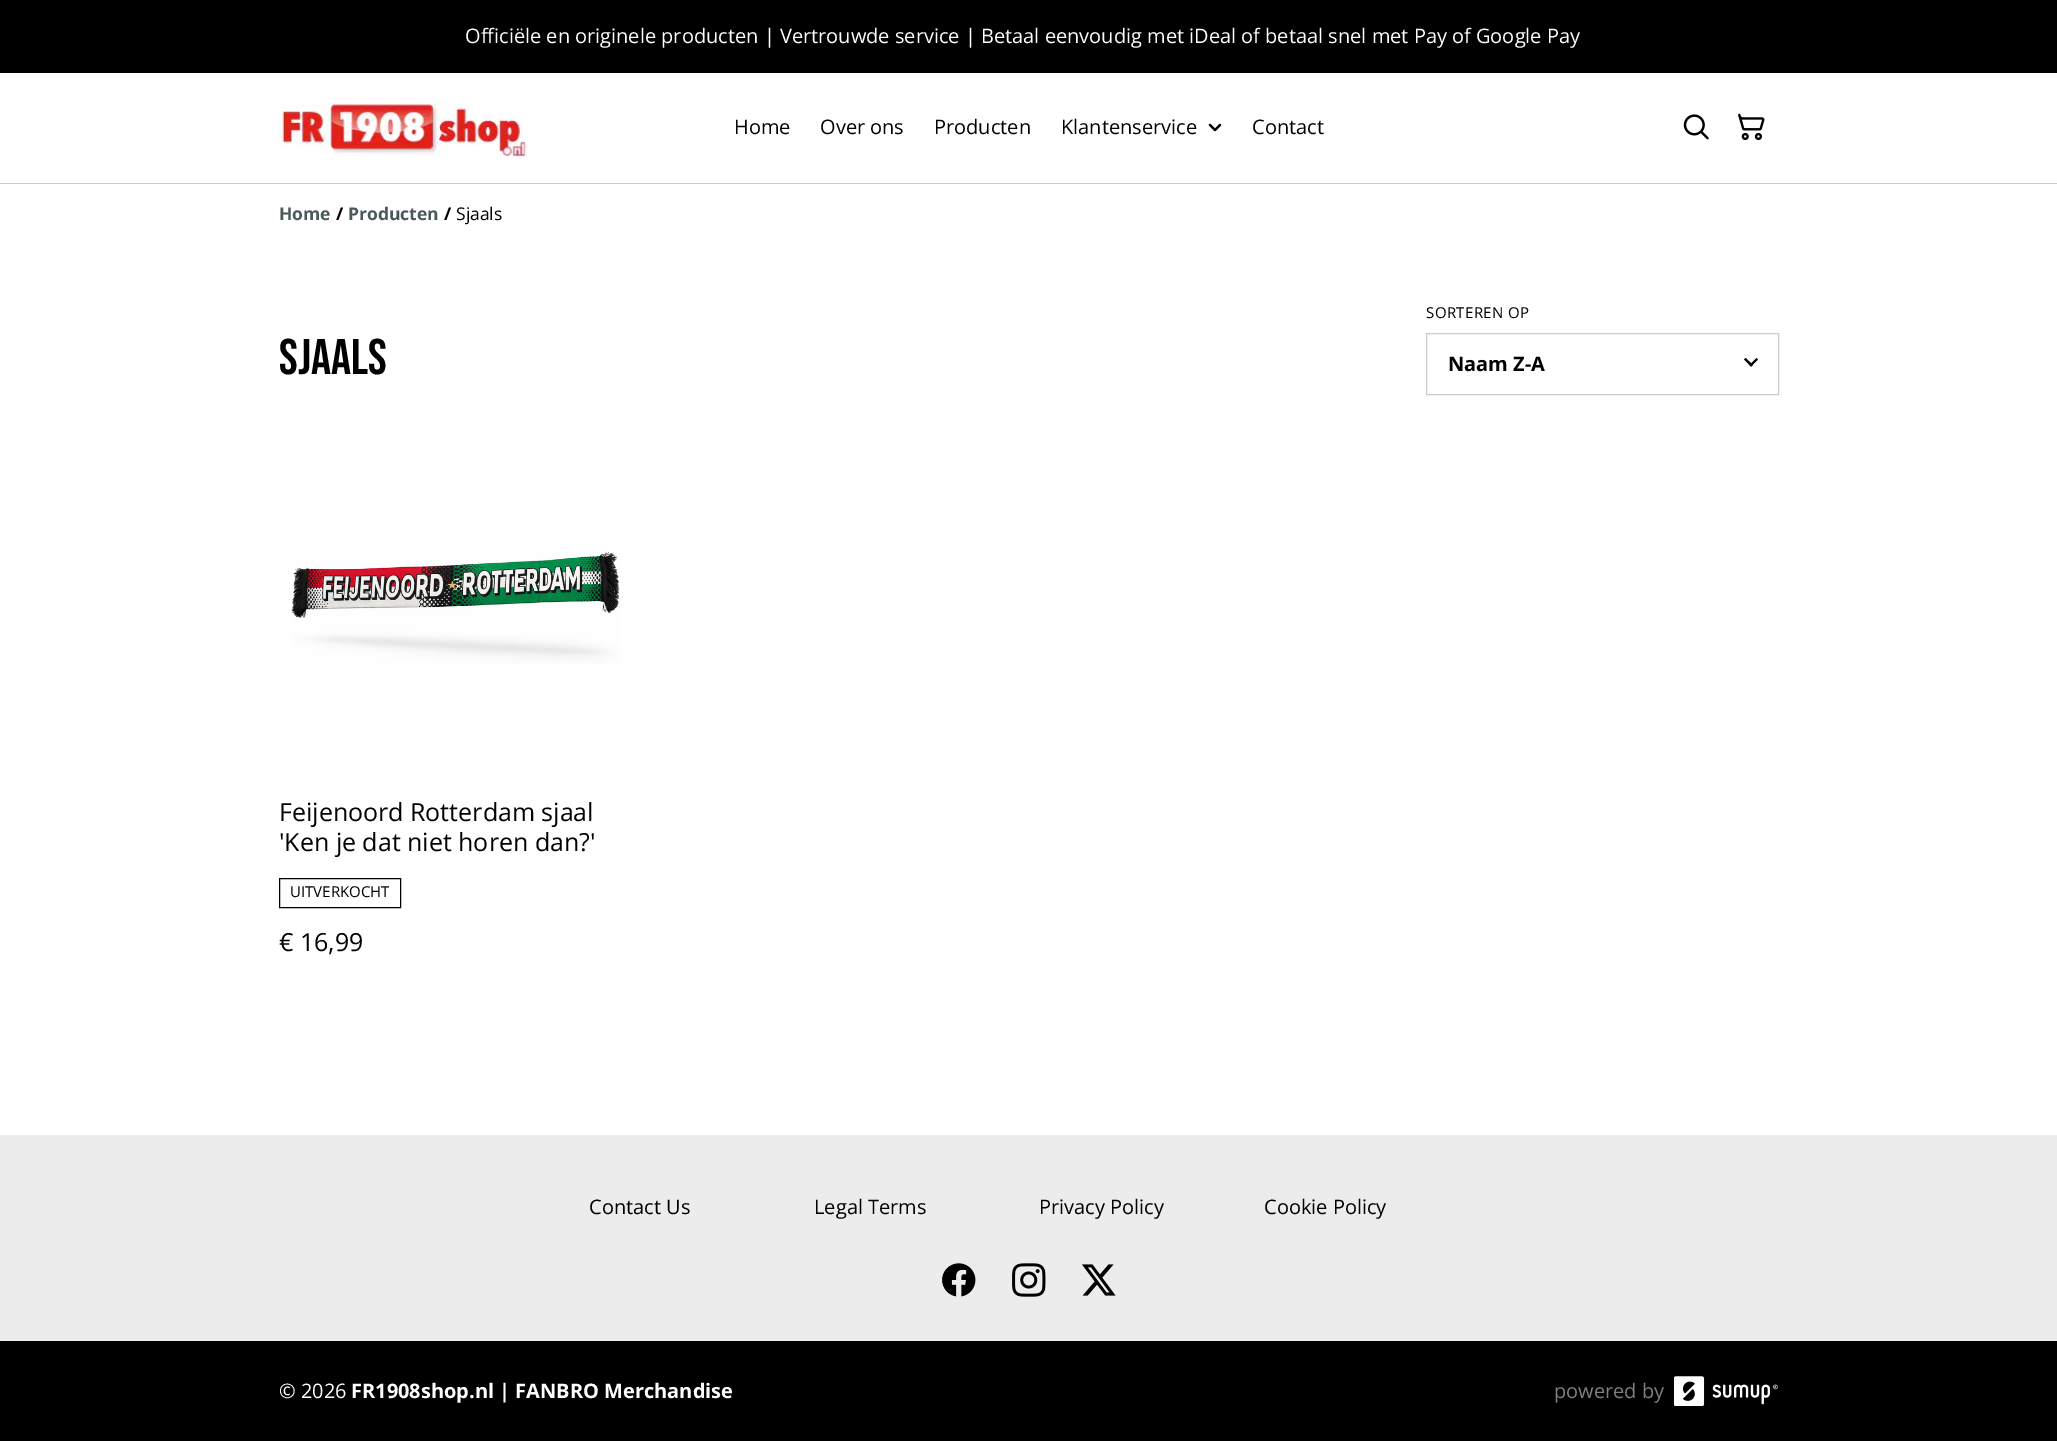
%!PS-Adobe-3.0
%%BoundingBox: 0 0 2057 1441
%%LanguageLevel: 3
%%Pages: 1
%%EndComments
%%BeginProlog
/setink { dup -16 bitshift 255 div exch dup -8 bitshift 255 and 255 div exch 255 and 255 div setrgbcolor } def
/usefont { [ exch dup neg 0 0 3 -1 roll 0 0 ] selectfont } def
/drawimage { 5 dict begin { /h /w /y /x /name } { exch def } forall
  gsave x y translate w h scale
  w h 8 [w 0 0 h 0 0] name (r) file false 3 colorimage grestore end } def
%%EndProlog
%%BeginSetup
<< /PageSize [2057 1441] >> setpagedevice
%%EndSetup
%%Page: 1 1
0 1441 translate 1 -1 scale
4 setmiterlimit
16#FFFFFF setink
0 0 2057 1441 rectfill
16#000000 setink
0 0 2057 73 rectfill
/OpenSans-Regular 20 usefont
16#FFFFFF setink
465 43 moveto (Officiële en originele producten | Vertrouwde service | Betaal eenvoudig met iDeal of betaal snel met Pay of Google Pay) show
16#CCCCCC setink
0 183 2057 1 rectfill
(img1.raw) 279 98 250 60 drawimage
16#000000 setink
[
    [(Home) 734 134]
    [(Over ons) 820 134]
    [(Producten) 934 134]
    [(Klantenservice) 1061 134]
] { aload pop moveto show } forall
(img2.raw) 1208 123 14 9 drawimage
1252 134 moveto (Contact) show
(img3.raw) 1683 114 26 26 drawimage
(img4.raw) 1738 113 27 28 drawimage
/OpenSans-Bold 17.5 usefont
16#4B585A setink
279 220 moveto (Home) show
16#000000 setink
336 220 moveto (/) show
16#4B585A setink
348 220 moveto (Producten) show
16#000000 setink
444 220 moveto (/) show
/OpenSans-Regular 17.5 usefont
456 220 moveto (Sjaals) show
/BebasNeue-Regular 50 usefont
279 374 moveto (Sjaals) show
/OpenSans-Regular 15 usefont
1426 318 moveto 0.4 0 (SORTEREN OP) ashow
16#CCCCCC setink
1426.5 333.5 352 61 rectstroke
/OpenSans-Bold 20 usefont
16#000000 setink
1448 371 moveto (Naam Z-A) show
1756.5 358 moveto 1758 359.5 lineto 1751 366.5 lineto 1749.5 365 lineto closepath fill
1745.5 358 moveto 1753 365 lineto 1751 366.5 lineto 1744 359.5 lineto closepath fill
(img5.raw) 291 552 329 112 drawimage
/OpenSans-Regular 25 usefont
279 821 moveto (Feijenoord Rotterdam sjaal) show
279 851 moveto ('Ken je dat niet horen dan?') show
279.5 878.5 121 29 rectstroke
/OpenSans-Regular 15 usefont
290 897 moveto (UITVERKOCHT) show
/OpenSans-Regular 25 usefont
279 951 moveto (€ 16,99) show
16#ECECEC setink
0 1135 2057 206 rectfill
/OpenSans-Regular 20 usefont
16#000000 setink
[
    [(Contact Us) 589 1214]
    [(Legal Terms) 814 1214]
    [(Privacy Policy) 1039 1214]
    [(Cookie Policy) 1264 1214]
] { aload pop moveto show } forall
(img6.raw) 942 1263 34 34 drawimage
(img7.raw) 1012 1263 34 34 drawimage
(img8.raw) 1082 1264 34 32 drawimage
0 1341 2057 100 rectfill
16#FFFFFF setink
279 1398 moveto (© 2026) show
/OpenSans-Bold 20 usefont
351 1398 moveto (FR1908shop.nl | FANBRO Merchandise) show
/OpenSans-Regular 20 usefont
16#808080 setink
1554 1398 moveto (powered by) show
(img9.raw) 1674 1376 104 30 drawimage
showpage
%%EOF
